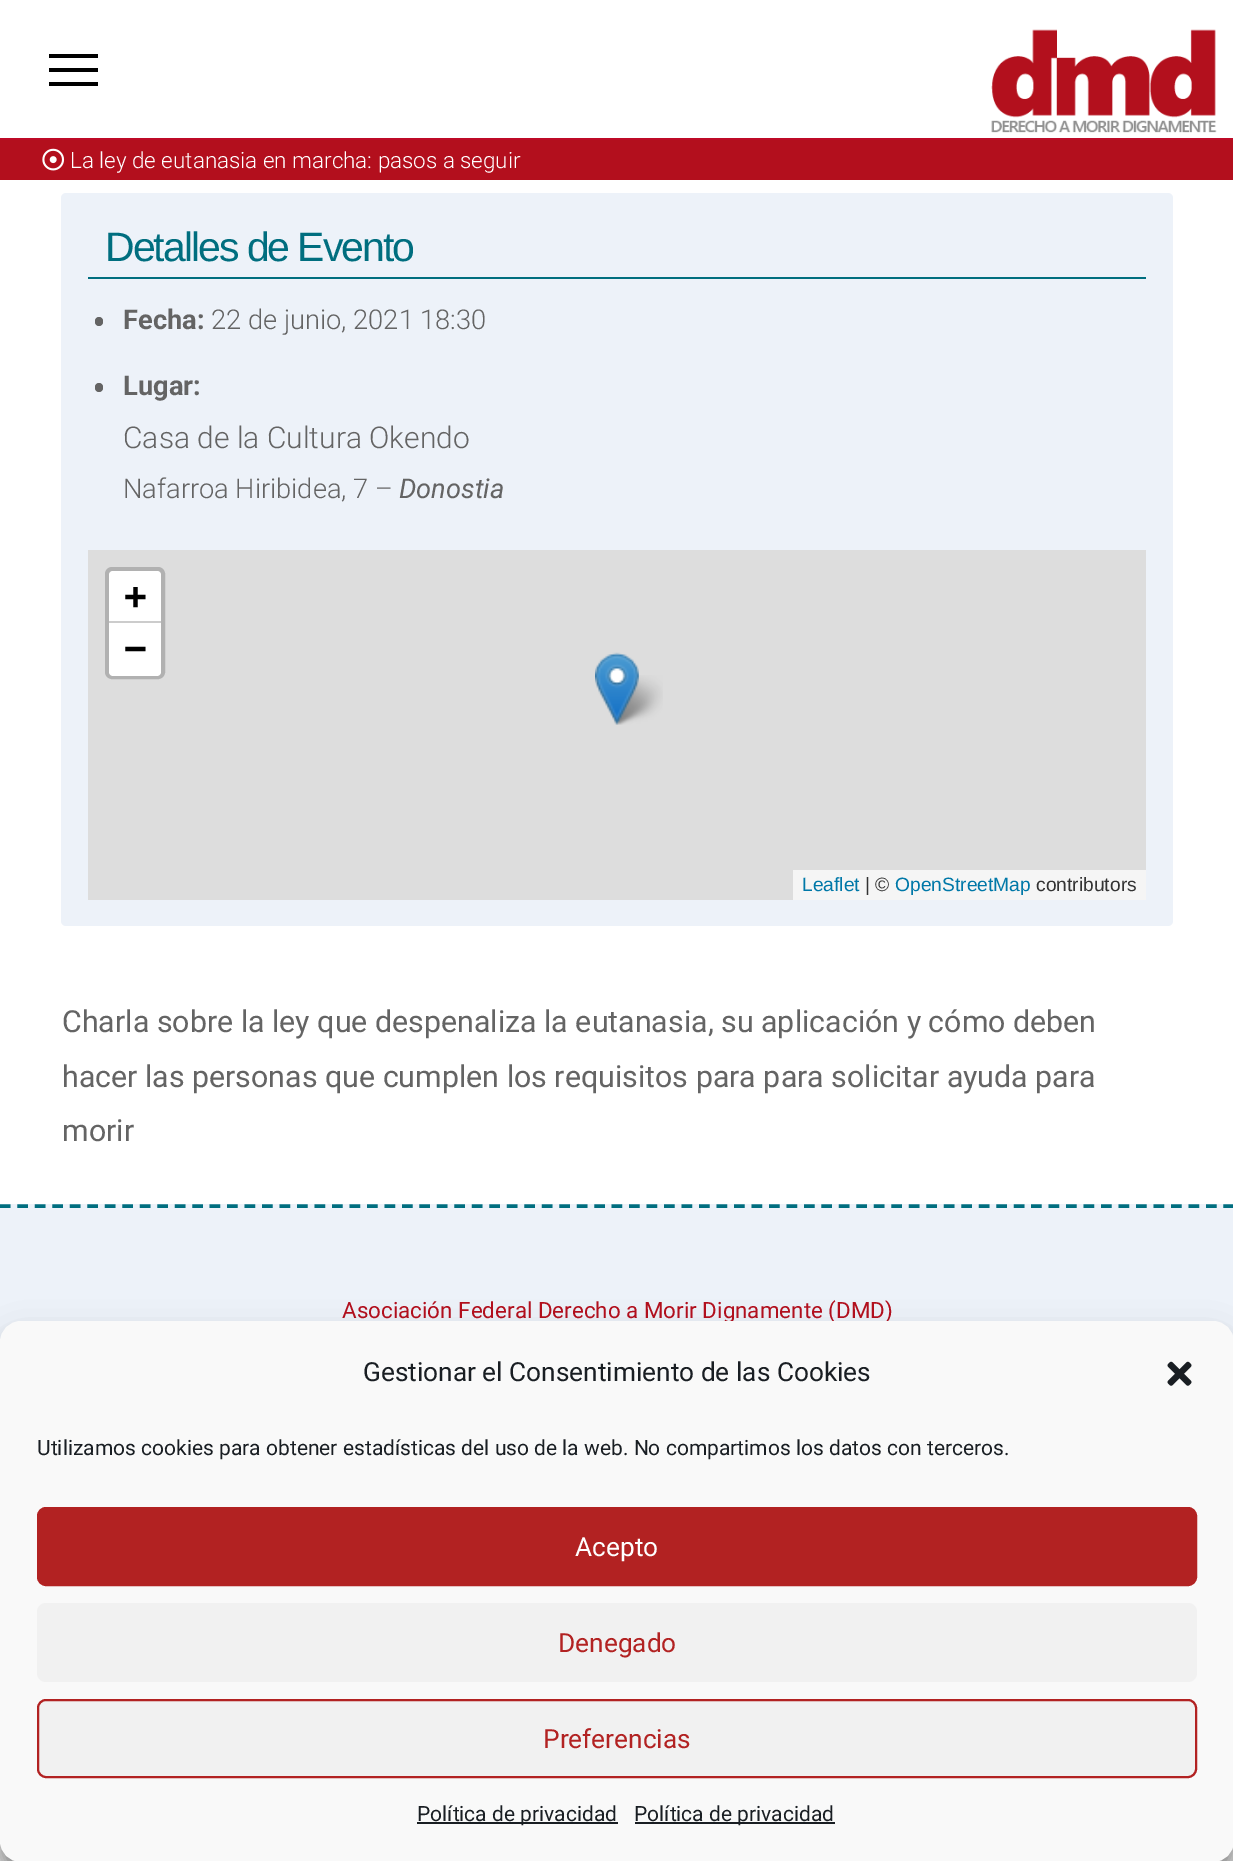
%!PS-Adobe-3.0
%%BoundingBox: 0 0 1233 1861
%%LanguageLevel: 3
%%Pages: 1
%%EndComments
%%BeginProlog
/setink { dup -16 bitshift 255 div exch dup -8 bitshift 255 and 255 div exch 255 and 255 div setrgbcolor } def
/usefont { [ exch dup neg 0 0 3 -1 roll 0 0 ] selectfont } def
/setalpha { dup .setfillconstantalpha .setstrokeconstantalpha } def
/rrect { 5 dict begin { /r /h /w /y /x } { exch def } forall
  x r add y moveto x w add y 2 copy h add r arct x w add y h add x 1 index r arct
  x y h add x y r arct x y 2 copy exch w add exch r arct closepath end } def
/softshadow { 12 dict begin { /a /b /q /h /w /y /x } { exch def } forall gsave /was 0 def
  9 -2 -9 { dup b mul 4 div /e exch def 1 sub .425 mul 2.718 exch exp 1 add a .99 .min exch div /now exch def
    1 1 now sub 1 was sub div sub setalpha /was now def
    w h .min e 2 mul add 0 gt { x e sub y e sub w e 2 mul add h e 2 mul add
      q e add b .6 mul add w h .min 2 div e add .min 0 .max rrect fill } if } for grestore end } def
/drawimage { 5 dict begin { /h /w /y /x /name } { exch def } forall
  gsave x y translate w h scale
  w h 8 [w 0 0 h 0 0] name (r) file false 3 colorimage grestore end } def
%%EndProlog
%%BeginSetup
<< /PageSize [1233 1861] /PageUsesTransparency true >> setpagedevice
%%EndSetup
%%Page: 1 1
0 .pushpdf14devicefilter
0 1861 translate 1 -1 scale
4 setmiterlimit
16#E6E6E6 setink
0 0 1233 1861 rectfill
[
    [0 0 1233 1204 16#FFFFFF]
    [0 138 1233 2 16#BE0A27]
    [49 54 49 4 16#000000]
    [49 68 49 4 16#000000]
    [49 82 49 4 16#000000]
] { aload pop setink rectfill } forall
(img1.raw) 991 29 226 104 drawimage
16#B30F1D setink
0 140 1233 40 rectfill
(img2.raw) 42 148 23 23 drawimage
/Roboto-Light 22.4 usefont
16#FFFFFF setink
70 168 moveto (La ley de eutanasia en marcha: pasos a seguir) show
16#EDF2F9 setink
61 193 1112 733 5 rrect fill
16#006E7F setink
88 277 1058 2 rectfill
/LiberationSans-Regular 41 usefont
105 261 moveto -2 0 (Detalles de Evento) ashow
16#646464 setink
95 317 8 9 4 rrect fill
/Roboto-Bold 27.25 usefont
123 329 moveto (Fecha:) show
/Roboto-Light 27.25 usefont
211 329 moveto (22 de junio, 2021 18:30) show
95 383 8 9 4 rrect fill
/Roboto-Bold 27.25 usefont
123 395 moveto (Lugar:) show
/Roboto-Light 30 usefont
123 448 moveto (Casa de la Cultura Okendo) show
/Roboto-Light 27.25 usefont
123 498 moveto (Nafarroa Hiribidea, 7 –) show
/Roboto-Italic 27.25 usefont
399 498 moveto (Donostia) show
16#DDDDDD setink
88 550 1058 350 rectfill
16#B1B1B1 setink
4 setlinewidth
107 569 56 108 5 rrect stroke
16#FFFFFF setink
113 571 moveto 157 571 lineto 159 571 161 573 161 575 curveto 161 623 lineto 109 623 lineto 109 575 lineto 109 573 111 571 113 571 curveto closepath fill
16#CCCCCC setink
109 621 52 2 rectfill
/DejaVuSansMono-Bold 38 usefont
16#000000 setink
124 609 moveto (+) show
16#FFFFFF setink
109 623 moveto 161 623 lineto 161 672 lineto 161 674 159 676 157 676 curveto 113 676 lineto 111 676 109 674 109 672 curveto closepath fill
16#000000 setink
124 661 moveto (−) show
16#F5F5F5 setink
793 870 353 30 rectfill
/LiberationSans-Regular 19.25 usefont
16#0078A8 setink
802 891 moveto (Leaflet) show
16#333333 setink
865 891 moveto (| ©) show
16#0078A8 setink
895 891 moveto (OpenStreetMap) show
16#333333 setink
1036 891 moveto (contributors) show
(img4.raw) 611 675 52 50 drawimage
(img3.raw) 595 652 44 73 drawimage
/Roboto-Regular 30.35 usefont
16#646464 setink
[
    [(Charla sobre la ley que despenaliza la eutanasia, su aplicación y cómo deben) 62 1032]
    [(hacer las personas que cumplen los requisitos para para solicitar ayuda para) 62 1087]
    [(morir) 62 1141]
] { aload pop moveto show } forall
16#EDF2F9 setink
0 1204 1233 138 rectfill
16#006E7F setink
3.5 setlinewidth
[10.5 6.98] 0 setdash
0 1206 moveto 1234 1206 lineto stroke
/Roboto-Regular 22.4 usefont
16#B30F1D setink
342 1318 moveto (Asociación Federal Derecho a Morir Dignamente \(DMD\)) show
16#000000 setink
0 1332 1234 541 21 5 0.23 softshadow
0 1339 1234 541 21 17.5 0.19 softshadow
16#F9F9F9 setink
1 1322 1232 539 20 rrect gsave fill grestore
2 setlinewidth
[] 0 setdash
stroke
/Roboto-Regular 26.25 usefont
16#191E23 setink
363 1381 moveto (Gestionar el Consentimiento de las Cookies) show
(img5.raw) 1167 1361 25 25 drawimage
/Roboto-Regular 21 usefont
37 1455 moveto (Utilizamos cookies para obtener estadísticas del uso de la web. No compartimos los datos con terceros.) show
16#B22222 setink
38 1508 1158 77 8 rrect gsave fill grestore
stroke
/Roboto-Regular 26.25 usefont
16#FFFFFF setink
575 1556 moveto (Acepto) show
16#F1F1F1 setink
37 1603 1160 79 9 rrect fill
16#B22222 setink
558 1652 moveto (Denegado) show
16#F1F1F1 setink
38 1700 1158 77 8 rrect gsave fill grestore
16#B22222 setink
stroke
543 1748 moveto (Preferencias) show
16#191E23 setink
417 1822 201 2 rectfill
/Roboto-Regular 21 usefont
417 1821 moveto (Política de privacidad) show
635 1822 200 2 rectfill
634 1821 moveto (Política de privacidad) show
.poppdf14devicefilter showpage
%%EOF
